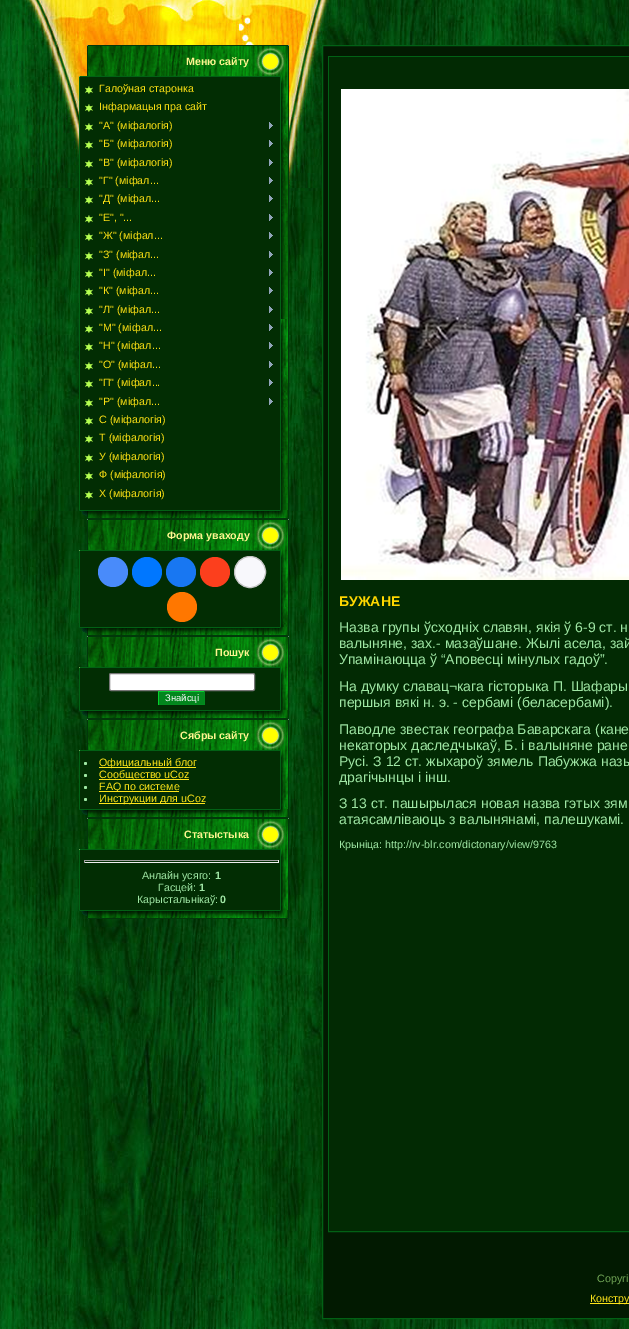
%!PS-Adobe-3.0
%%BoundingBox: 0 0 629 1329
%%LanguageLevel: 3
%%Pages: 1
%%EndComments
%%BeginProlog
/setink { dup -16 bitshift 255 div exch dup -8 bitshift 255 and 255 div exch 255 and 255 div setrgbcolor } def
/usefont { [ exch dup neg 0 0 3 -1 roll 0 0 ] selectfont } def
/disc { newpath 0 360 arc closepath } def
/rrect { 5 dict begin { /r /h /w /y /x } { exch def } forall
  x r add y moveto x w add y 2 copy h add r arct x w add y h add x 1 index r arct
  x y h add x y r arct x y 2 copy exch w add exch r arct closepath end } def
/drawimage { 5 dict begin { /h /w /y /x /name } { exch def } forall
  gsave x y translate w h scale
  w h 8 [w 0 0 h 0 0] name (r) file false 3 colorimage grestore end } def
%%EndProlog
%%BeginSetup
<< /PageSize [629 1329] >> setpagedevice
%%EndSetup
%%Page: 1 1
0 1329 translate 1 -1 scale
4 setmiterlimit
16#FFFFFF setink
0 0 629 1329 rectfill
(img1.raw) 0 0 629 1329 drawimage
(img2.raw) 10 0 336 45 drawimage
(img3.raw) 10 45 312 143 drawimage
(img4.raw) 79 45 210 32 drawimage
/LiberationSans-Bold 10.7 usefont
16#FEF590 setink
186 65 moveto (Меню сайту) show
(img5.raw) 79 77 210 433 drawimage
(img6.raw) 85 86 8 8 drawimage
/LiberationSans-Regular 10.7 usefont
16#FCE014 setink
99 92 moveto (Галоўная старонка) show
(img6.raw) 85 104 8 8 drawimage
99 110 moveto (Інфармацыя пра сайт) show
(img6.raw) 85 123 8 8 drawimage
99 129 moveto ("А" \(міфалогія\)) show
(img7.raw) 269 122 4 7 drawimage
(img6.raw) 85 141 8 8 drawimage
99 147 moveto ("Б" \(міфалогія\)) show
(img7.raw) 269 140 4 7 drawimage
(img6.raw) 85 160 8 8 drawimage
99 166 moveto ("В" \(міфалогія\)) show
(img7.raw) 269 159 4 7 drawimage
(img6.raw) 85 178 8 8 drawimage
99 184 moveto ("Г" \(міфал...) show
(img7.raw) 269 177 4 7 drawimage
(img6.raw) 85 196 8 8 drawimage
99 202 moveto ("Д" \(міфал...) show
(img7.raw) 269 195 4 7 drawimage
(img6.raw) 85 215 8 8 drawimage
99 221 moveto ("Е", "...) show
(img7.raw) 269 214 4 7 drawimage
(img6.raw) 85 233 8 8 drawimage
99 239 moveto ("Ж" \(міфал...) show
(img7.raw) 269 232 4 7 drawimage
(img6.raw) 85 252 8 8 drawimage
99 258 moveto ("З" \(міфал...) show
(img7.raw) 269 251 4 7 drawimage
(img6.raw) 85 270 8 8 drawimage
99 276 moveto ("І" \(міфал...) show
(img7.raw) 269 269 4 7 drawimage
(img6.raw) 85 288 8 8 drawimage
99 294 moveto ("К" \(міфал...) show
(img7.raw) 269 287 4 7 drawimage
(img6.raw) 85 307 8 8 drawimage
99 313 moveto ("Л" \(міфал...) show
(img7.raw) 269 306 4 7 drawimage
(img6.raw) 85 325 8 8 drawimage
99 331 moveto ("М" \(міфал...) show
(img7.raw) 269 324 4 7 drawimage
(img6.raw) 85 343 8 8 drawimage
99 349 moveto ("Н" \(міфал...) show
(img7.raw) 269 342 4 7 drawimage
(img6.raw) 85 362 8 8 drawimage
99 368 moveto ("О" \(міфал...) show
(img7.raw) 269 361 4 7 drawimage
(img6.raw) 85 380 8 8 drawimage
99 386 moveto ("П" \(міфал...) show
(img7.raw) 269 379 4 7 drawimage
(img6.raw) 85 399 8 8 drawimage
99 405 moveto ("Р" \(міфал...) show
(img7.raw) 269 398 4 7 drawimage
(img6.raw) 85 417 8 8 drawimage
99 423 moveto (С \(міфалогія\)) show
(img6.raw) 85 435 8 8 drawimage
99 441 moveto (Т \(міфалогія\)) show
(img6.raw) 85 454 8 8 drawimage
99 460 moveto (У \(міфалогія\)) show
(img6.raw) 85 472 8 8 drawimage
99 478 moveto (Ф \(міфалогія\)) show
(img6.raw) 85 491 8 8 drawimage
99 497 moveto (Х \(міфалогія\)) show
(img8.raw) 79 510 210 9 drawimage
(img9.raw) 79 519 210 32 drawimage
/LiberationSans-Bold 10.7 usefont
16#FEF590 setink
167 539 moveto (Форма уваходу) show
(img10.raw) 79 551 210 76 drawimage
16#498BFA setink
113 572 15 disc fill
16#0077FF setink
147 572 15 disc fill
16#1877F2 setink
181 572 15 disc fill
16#FC3F1D setink
215 572 15 disc fill
16#F8F8FC setink
250 572 15.5 disc gsave fill grestore
16#C4C4C4 setink
stroke
16#FF7700 setink
182 607 15 disc fill
(img11.raw) 79 627 210 9 drawimage
(img12.raw) 79 636 210 32 drawimage
16#FEF590 setink
215 656 moveto (Пошук) show
(img13.raw) 79 668 210 42 drawimage
16#FFFFFF setink
109.5 673.5 145 17 1.5 rrect gsave fill grestore
16#767676 setink
stroke
[
    [159 692 45 12 16#03861D]
    [158 691 47 1 16#04D12D]
    [204 691 1 14 16#038B1E]
    [158 704 47 1 16#038B1E]
    [158 691 1 14 16#04D12D]
] { aload pop setink rectfill } forall
/LiberationSans-Regular 9.5 usefont
16#FFFFFF setink
165 701 moveto (Знайсці) show
(img14.raw) 79 710 210 9 drawimage
(img15.raw) 79 719 210 32 drawimage
/LiberationSans-Bold 10.7 usefont
16#FEF590 setink
180 739 moveto (Сябры сайту) show
(img16.raw) 79 751 210 58 drawimage
16#9FE6A4 setink
85.5 763.5 1.5 disc fill
16#FDE41A setink
99 767 97 1 rectfill
/LiberationSans-Regular 10.7 usefont
99 766 moveto (Официальный блог) show
16#9FE6A4 setink
85.5 775.5 1.5 disc fill
16#FDE41A setink
99 779 90 1 rectfill
99 778 moveto (Сообщество uCoz) show
16#9FE6A4 setink
85.5 787.5 1.5 disc fill
16#FDE41A setink
99 791 80 1 rectfill
99 790 moveto (FAQ по системе) show
16#9FE6A4 setink
85.5 799.5 1.5 disc fill
16#FDE41A setink
99 803 106 1 rectfill
99 802 moveto (Инструкции для uCoz) show
(img17.raw) 79 809 210 9 drawimage
(img18.raw) 79 818 210 32 drawimage
/LiberationSans-Bold 10.7 usefont
16#FEF590 setink
184 838 moveto (Статыстыка) show
(img19.raw) 79 850 210 60 drawimage
[
    [84 860 195 1 16#9F9F9F]
    [278 860 1 3 16#EEEEEE]
    [84 862 195 1 16#EEEEEE]
    [84 860 1 3 16#9F9F9F]
] { aload pop setink rectfill } forall
/LiberationSans-Regular 10.7 usefont
16#9FE6A4 setink
142 879 moveto (Анлайн усяго:) show
/LiberationSans-Bold 10.7 usefont
215 879 moveto (1) show
/LiberationSans-Regular 10.7 usefont
158 891 moveto (Гасцей:) show
/LiberationSans-Bold 10.7 usefont
199 891 moveto (1) show
/LiberationSans-Regular 10.7 usefont
137 903 moveto (Карыстальнікаў:) show
/LiberationSans-Bold 10.7 usefont
220 903 moveto (0) show
(img20.raw) 79 910 210 9 drawimage
16#021A01 setink
322.5 45.5 moveto 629.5 45.5 lineto 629.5 1318.5 lineto 322.5 1318.5 lineto closepath gsave fill grestore
16#026115 setink
stroke
328.5 56.5 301 1175 rectstroke
16#022A03 setink
329 57 300 1174 rectfill
(img21.raw) 341 89 288 491 drawimage
/LiberationSans-Bold 14 usefont
16#FFD700 setink
339 606 moveto (БУЖАНЕ) show
/LiberationSans-Regular 14 usefont
16#9FE6A4 setink
[
    [(Назва групы ўcxоднix славян, якiя ў 6-9 ст. н) 339 632]
    [(валыняне, зах.- мазаўшане. Жылi асела, зай) 339 648]
    [(Упамiнаюцца ў “Аповесцi мiнулых гадоў”.) 339 664]
    [(На думку славац¬кага гicтopыкa П. Шафары) 339 691]
    [(першыя вякi н. э. - сербамi \(беласербамi\).) 339 707]
    [(Паводле звестак географа Баварскага \(кане) 339 734]
    [(некаторых даследчыкаў, Б. i валыняне ране) 339 750]
    [(Pyci. З 12 ст. жыхароў зямель Пабужжа назы) 339 766]
    [(драгiчынцы і iнш.) 339 782]
    [(З 13 ст. пашырылася новая назва гэтых зям) 339 808]
    [(атаясамлiваюць з валынянамi, палешукамi.) 339 824]
] { aload pop moveto show } forall
/LiberationSans-Regular 10.7 usefont
339 848 moveto (Крыніца: http://rv-blr.com/dictonary/view/9763) show
16#71A556 setink
597 1282 moveto (Copyri) show
16#FDE41A setink
590 1303 39 1 rectfill
590 1302 moveto (Констру) show
showpage
%%EOF
